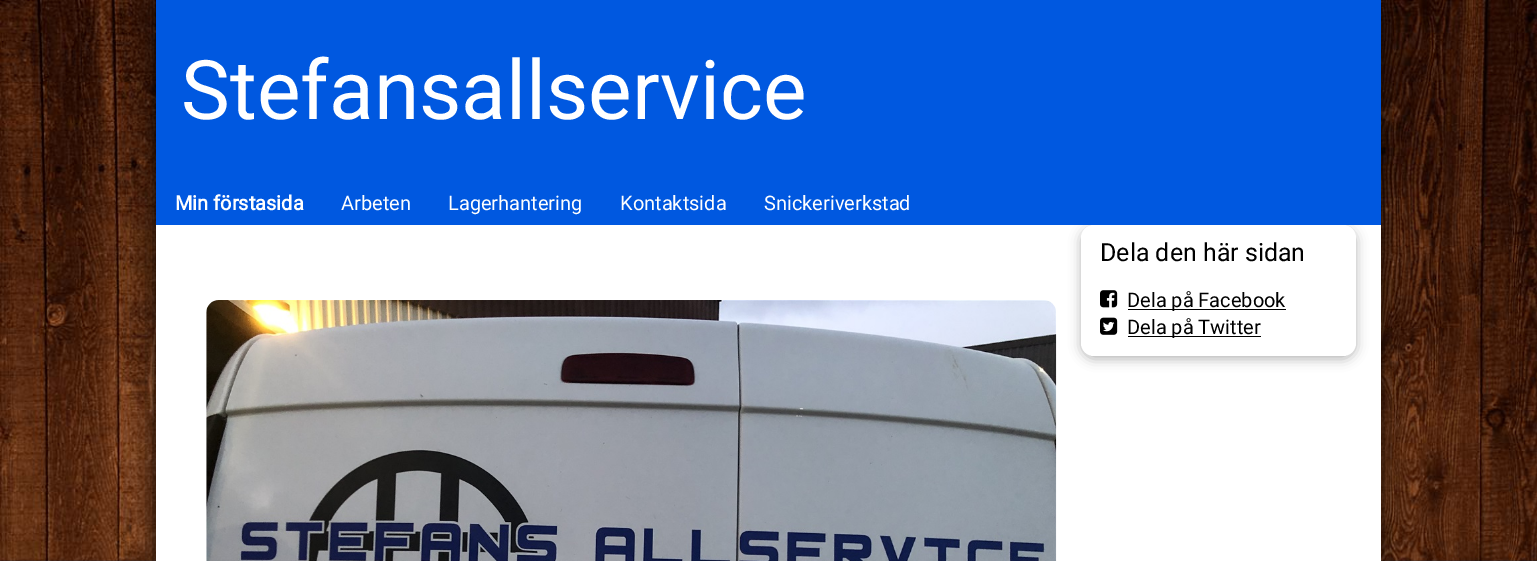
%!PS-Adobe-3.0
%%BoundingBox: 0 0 1537 561
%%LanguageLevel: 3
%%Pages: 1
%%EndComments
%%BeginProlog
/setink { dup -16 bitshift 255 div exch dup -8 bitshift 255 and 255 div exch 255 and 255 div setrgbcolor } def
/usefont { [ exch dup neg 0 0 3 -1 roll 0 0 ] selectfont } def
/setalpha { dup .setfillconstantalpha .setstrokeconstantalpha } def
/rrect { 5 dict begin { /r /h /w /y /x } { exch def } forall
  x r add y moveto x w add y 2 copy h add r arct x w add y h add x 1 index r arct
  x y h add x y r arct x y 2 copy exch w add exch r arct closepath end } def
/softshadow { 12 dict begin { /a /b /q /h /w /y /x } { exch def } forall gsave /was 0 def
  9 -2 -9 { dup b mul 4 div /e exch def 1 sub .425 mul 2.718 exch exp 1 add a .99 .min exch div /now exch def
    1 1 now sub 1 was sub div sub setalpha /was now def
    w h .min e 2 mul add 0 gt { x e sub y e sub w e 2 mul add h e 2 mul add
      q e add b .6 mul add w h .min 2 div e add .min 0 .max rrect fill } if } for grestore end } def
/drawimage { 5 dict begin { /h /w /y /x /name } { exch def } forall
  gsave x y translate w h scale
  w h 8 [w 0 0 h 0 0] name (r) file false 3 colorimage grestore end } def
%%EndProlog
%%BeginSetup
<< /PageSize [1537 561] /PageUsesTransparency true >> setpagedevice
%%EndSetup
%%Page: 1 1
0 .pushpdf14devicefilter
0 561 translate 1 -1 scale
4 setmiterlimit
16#FFFFFF setink
0 0 1537 561 rectfill
(img1.raw) 0 0 1537 561 drawimage
16#000000 setink
156 0 1225 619 13 15 0.8 softshadow
16#FFFFFF setink
156 225 1225 336 rectfill
16#0058E0 setink
156 0 1225 181 rectfill
/Roboto-Regular 82.25 usefont
16#FFFFFF setink
181 119 moveto (Stefansallservice) show
16#000000 setink
1081 228 275 131 13 6 0.29 softshadow
16#0058E0 setink
156 181 1225 44 rectfill
/Roboto-Bold 20 usefont
16#FFFFFF setink
175 210 moveto (Min förstasida) show
/Roboto-Regular 20 usefont
[
    [(Arbeten) 341 210]
    [(Lagerhantering) 448 210]
    [(Kontaktsida) 620 210]
    [(Snickeriverkstad) 764 210]
] { aload pop moveto show } forall
(img2.raw) 206 300 851 261 drawimage
1081 225 275 131 13 rrect fill
/Roboto-Regular 25 usefont
16#000000 setink
1100 261 moveto (Dela den här sidan) show
(img3.raw) 1100 290 18 18 drawimage
1128 309 158 1 rectfill
/Roboto-Regular 20 usefont
1127 307 moveto (Dela på Facebook) show
(img4.raw) 1100 317 18 18 drawimage
1128 336 133 1 rectfill
1127 334 moveto (Dela på Twitter) show
.poppdf14devicefilter showpage
%%EOF
